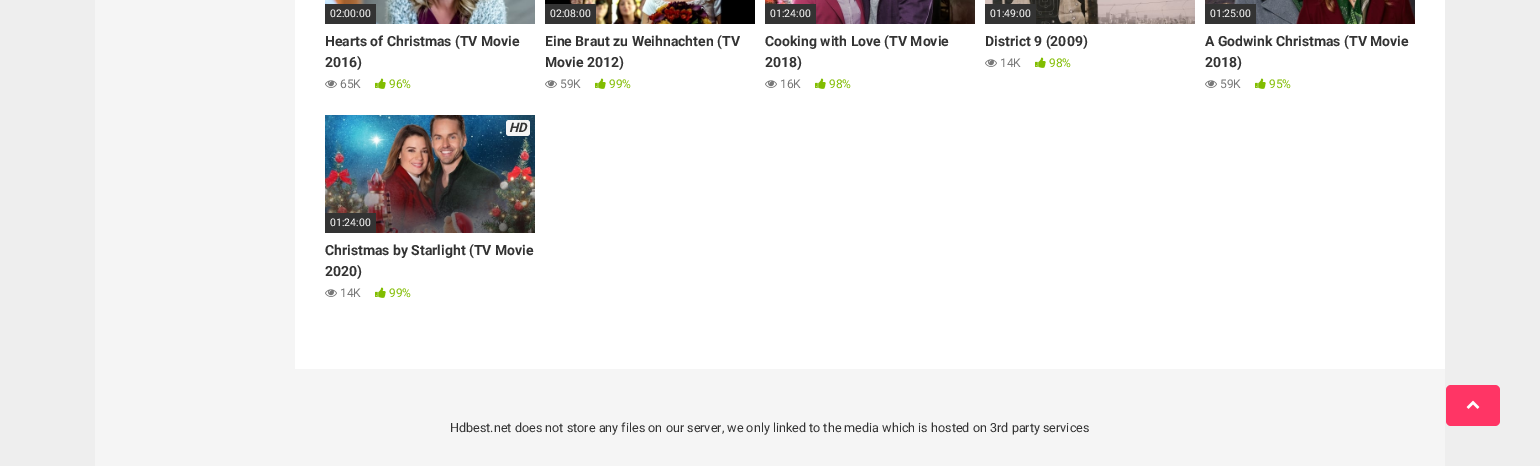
%!PS-Adobe-3.0
%%BoundingBox: 0 0 1540 466
%%LanguageLevel: 3
%%Pages: 1
%%EndComments
%%BeginProlog
/setink { dup -16 bitshift 255 div exch dup -8 bitshift 255 and 255 div exch 255 and 255 div setrgbcolor } def
/usefont { [ exch dup neg 0 0 3 -1 roll 0 0 ] selectfont } def
/rrect { 5 dict begin { /r /h /w /y /x } { exch def } forall
  x r add y moveto x w add y 2 copy h add r arct x w add y h add x 1 index r arct
  x y h add x y r arct x y 2 copy exch w add exch r arct closepath end } def
/drawimage { 5 dict begin { /h /w /y /x /name } { exch def } forall
  gsave x y translate w h scale
  w h 8 [w 0 0 h 0 0] name (r) file false 3 colorimage grestore end } def
%%EndProlog
%%BeginSetup
<< /PageSize [1540 466] >> setpagedevice
%%EndSetup
%%Page: 1 1
0 466 translate 1 -1 scale
4 setmiterlimit
16#EEEEEE setink
0 0 1540 466 rectfill
16#F5F5F5 setink
95 0 1350 466 rectfill
16#FFFFFF setink
295 0 1150 369 rectfill
(img1.raw) 325 0 210 24 drawimage
16#333333 setink
325 4 51 20 rectfill
/Roboto-Regular 10.5 usefont
16#FFFFFF setink
330 17 moveto (02:00:00) show
/Roboto-Bold 14 usefont
16#333333 setink
325 46 moveto (Hearts of Christmas \(TV Movie) show
325 67 moveto (2016\)) show
(img2.raw) 325 80 12 8 drawimage
/Roboto-Regular 12 usefont
16#777777 setink
340 88 moveto (65K) show
(img3.raw) 375 78 11 11 drawimage
16#81BD00 setink
389 88 moveto (96%) show
16#000000 setink
545 0 210 24 rectfill
(img4.raw) 569 0 154 24 drawimage
16#333333 setink
545 4 51 20 rectfill
/Roboto-Regular 10.5 usefont
16#FFFFFF setink
550 17 moveto (02:08:00) show
/Roboto-Bold 14 usefont
16#333333 setink
545 46 moveto (Eine Braut zu Weihnachten \(TV) show
545 67 moveto (Movie 2012\)) show
(img2.raw) 545 80 12 8 drawimage
/Roboto-Regular 12 usefont
16#777777 setink
560 88 moveto (59K) show
(img3.raw) 595 78 11 11 drawimage
16#81BD00 setink
609 88 moveto (99%) show
(img5.raw) 765 0 210 24 drawimage
16#333333 setink
765 4 51 20 rectfill
/Roboto-Regular 10.5 usefont
16#FFFFFF setink
770 17 moveto (01:24:00) show
/Roboto-Bold 14 usefont
16#333333 setink
765 46 moveto (Cooking with Love \(TV Movie) show
765 67 moveto (2018\)) show
(img2.raw) 765 80 12 8 drawimage
/Roboto-Regular 12 usefont
16#777777 setink
780 88 moveto (16K) show
(img3.raw) 815 78 11 11 drawimage
16#81BD00 setink
829 88 moveto (98%) show
(img6.raw) 985 0 210 24 drawimage
16#333333 setink
985 4 51 20 rectfill
/Roboto-Regular 10.5 usefont
16#FFFFFF setink
990 17 moveto (01:49:00) show
/Roboto-Bold 14 usefont
16#333333 setink
985 46 moveto (District 9 \(2009\)) show
(img2.raw) 985 59 12 8 drawimage
/Roboto-Regular 12 usefont
16#777777 setink
1000 67 moveto (14K) show
(img3.raw) 1035 57 11 11 drawimage
16#81BD00 setink
1049 67 moveto (98%) show
(img7.raw) 1205 0 210 24 drawimage
16#333333 setink
1205 4 51 20 rectfill
/Roboto-Regular 10.5 usefont
16#FFFFFF setink
1210 17 moveto (01:25:00) show
/Roboto-Bold 14 usefont
16#333333 setink
1205 46 moveto (A Godwink Christmas \(TV Movie) show
1205 67 moveto (2018\)) show
(img2.raw) 1205 80 12 8 drawimage
/Roboto-Regular 12 usefont
16#777777 setink
1220 88 moveto (59K) show
(img3.raw) 1255 78 11 11 drawimage
16#81BD00 setink
1269 88 moveto (95%) show
(img8.raw) 325 115 210 118 drawimage
16#F5F5F5 setink
506 120 24 16 3 rrect fill
/Roboto-BoldItalic 13 usefont
16#333333 setink
509 132 moveto (HD) show
325 213 51 20 rectfill
/Roboto-Regular 10.5 usefont
16#FFFFFF setink
330 226 moveto (01:24:00) show
/Roboto-Bold 14 usefont
16#333333 setink
325 255 moveto (Christmas by Starlight \(TV Movie) show
325 276 moveto (2020\)) show
(img2.raw) 325 289 12 8 drawimage
/Roboto-Regular 12 usefont
16#777777 setink
340 297 moveto (14K) show
(img3.raw) 375 287 11 11 drawimage
16#81BD00 setink
389 297 moveto (99%) show
/Roboto-Regular 12.6 usefont
16#333333 setink
450 432 moveto (Hdbest.net does not store any files on our server, we only linked to the media which is hosted on 3rd party services) show
16#FF3565 setink
1446 385 54 41 5 rrect fill
(img9.raw) 1466 400 14 9 drawimage
showpage
%%EOF
